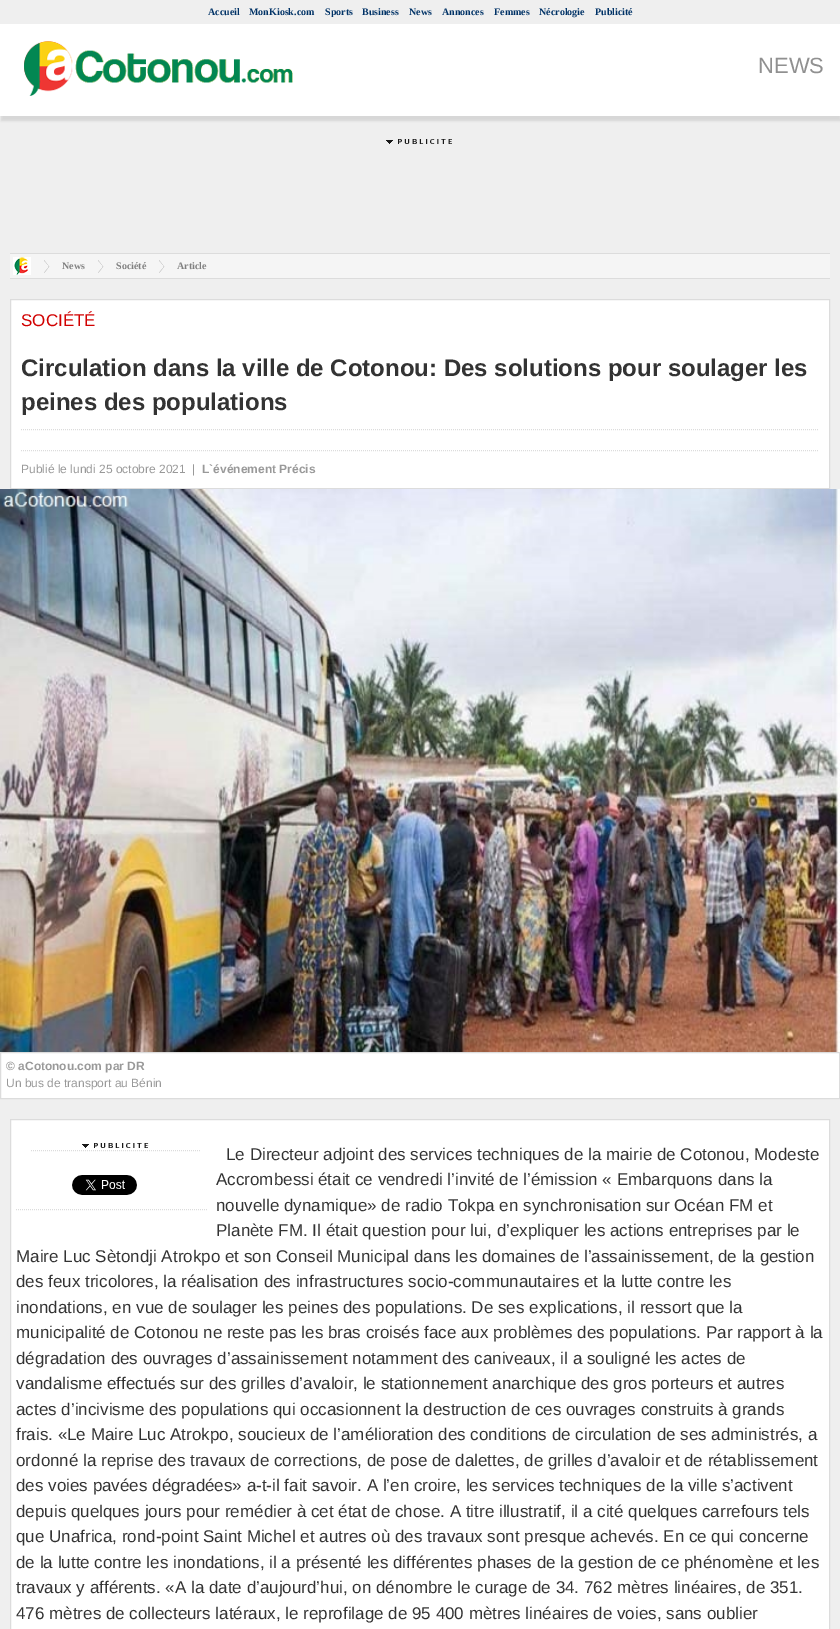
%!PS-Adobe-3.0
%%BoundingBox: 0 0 840 1629
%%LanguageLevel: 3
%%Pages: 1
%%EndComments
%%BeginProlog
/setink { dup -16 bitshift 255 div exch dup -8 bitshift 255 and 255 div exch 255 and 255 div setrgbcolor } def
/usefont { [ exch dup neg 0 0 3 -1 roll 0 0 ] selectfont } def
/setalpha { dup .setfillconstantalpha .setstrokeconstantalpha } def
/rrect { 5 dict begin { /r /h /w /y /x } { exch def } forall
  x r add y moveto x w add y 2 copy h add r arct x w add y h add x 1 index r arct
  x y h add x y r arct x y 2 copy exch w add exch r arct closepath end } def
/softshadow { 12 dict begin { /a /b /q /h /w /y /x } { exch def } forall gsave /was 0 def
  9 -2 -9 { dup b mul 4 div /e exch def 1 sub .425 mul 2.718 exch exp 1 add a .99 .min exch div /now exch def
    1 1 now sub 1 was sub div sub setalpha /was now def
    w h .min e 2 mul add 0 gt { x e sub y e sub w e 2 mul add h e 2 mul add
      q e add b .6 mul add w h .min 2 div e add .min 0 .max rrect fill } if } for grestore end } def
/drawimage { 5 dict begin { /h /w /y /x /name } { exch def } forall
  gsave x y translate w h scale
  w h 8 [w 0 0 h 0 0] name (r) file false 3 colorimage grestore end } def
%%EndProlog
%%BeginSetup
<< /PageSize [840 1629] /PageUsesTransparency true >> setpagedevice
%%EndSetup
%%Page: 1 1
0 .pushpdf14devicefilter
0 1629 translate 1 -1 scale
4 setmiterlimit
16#EFEFEF setink
0 0 840 1629 rectfill
/LiberationSerif-Bold 10 usefont
16#003266 setink
[
    [(Accueil) 208 15]
    [(MonKiosk.com) 249 15]
    [(Sports) 325 15]
    [(Business) 362 15]
    [(News) 409 15]
    [(Annonces) 442 15]
    [(Femmes) 494 15]
    [(Nécrologie) 539 15]
    [(Publicité) 595 15]
] { aload pop moveto show } forall
16#000000 setink
1 29 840 92 0 1 0.1 softshadow
16#FFFFFF setink
0 24 840 92 rectfill
(img1.raw) 24 41 269 55 drawimage
/LiberationSans-Regular 22 usefont
16#909090 setink
758 73 moveto (NEWS) show
(img2.raw) 386 139 66 5 drawimage
[
    [10 254 820 24 16#F5F5F5]
    [10 253 820 1 16#DCDCDC]
    [10 278 820 1 16#DCDCDC]
] { aload pop setink rectfill } forall
(img3.raw) 13 257 18 18 drawimage
(img4.raw) 44 260 6 13 drawimage
/LiberationSerif-Bold 10 usefont
16#808080 setink
62 269 moveto (News) show
(img4.raw) 98 260 6 13 drawimage
116 269 moveto (Société) show
(img4.raw) 159 260 6 13 drawimage
177 269 moveto (Article) show
16#FFFFFF setink
10.5 299.5 moveto 829.5 299.5 lineto 829.5 488.5 lineto 10.5 488.5 lineto closepath gsave fill grestore
16#DCDCDC setink
stroke
/LiberationSans-Regular 17 usefont
16#D10000 setink
21 326 moveto (SOCIÉTÉ) show
/LiberationSans-Bold 24 usefont
16#333333 setink
21 376 moveto (Circulation dans la ville de Cotonou: Des solutions pour soulager les) show
21 410 moveto (peines des populations) show
16#DCDCDC setink
[1 1] 0 setdash
21 429.5 moveto 819 429.5 lineto stroke
21 450.5 moveto 819 450.5 lineto stroke
/LiberationSans-Regular 12 usefont
16#999999 setink
21 473 moveto (Publié le lundi 25 octobre 2021  |) show
/LiberationSans-Bold 12 usefont
202 473 moveto (L`événement Précis) show
(img5.raw) 0 489 840 563 drawimage
16#FFFFFF setink
0.5 1052.5 moveto 839.5 1052.5 lineto 839.5 1098.5 lineto 0.5 1098.5 lineto closepath gsave fill grestore
16#DCDCDC setink
[] 0 setdash
stroke
16#999999 setink
6 1070 moveto (© aCotonou.com par DR) show
/LiberationSans-Regular 12 usefont
6 1087 moveto (Un bus de transport au Bénin) show
16#FFFFFF setink
10.5 1119.5 moveto 829.5 1119.5 lineto 829.5 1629.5 lineto 10.5 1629.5 lineto closepath gsave fill grestore
16#DCDCDC setink
stroke
(img6.raw) 82 1143 67 5 drawimage
[1 1] 0 setdash
31 1150.5 moveto 201 1150.5 lineto stroke
(img7.raw) 72 1175 65 20 drawimage
16 1209.5 moveto 208 1209.5 lineto stroke
/LiberationSans-Regular 17 usefont
16#333333 setink
[
    [(Le Directeur adjoint des services techniques de la mairie de Cotonou, Modeste) 226 1160]
    [(Accrombessi était ce vendredi l’invité de l’émission « Embarquons dans la) 216 1185]
    [(nouvelle dynamique» de radio Tokpa en synchronisation sur Océan FM et) 216 1211]
    [(Planète FM. Il était question pour lui, d’expliquer les actions entreprises par le) 216 1236]
    [(Maire Luc Sètondji Atrokpo et son Conseil Municipal dans les domaines de l’assainissement, de la gestion) 16 1262]
    [(des feux tricolores, la réalisation des infrastructures socio-communautaires et la lutte contre les) 16 1287]
    [(inondations, en vue de soulager les peines des populations. De ses explications, il ressort que la) 16 1313]
    [(municipalité de Cotonou ne reste pas les bras croisés face aux problèmes des populations. Par rapport à la) 16 1338]
    [(dégradation des ouvrages d’assainissement notamment des caniveaux, il a souligné les actes de) 16 1364]
    [(vandalisme effectués sur des grilles d’avaloir, le stationnement anarchique des gros porteurs et autres) 16 1389]
    [(actes d’incivisme des populations qui occasionnent la destruction de ces ouvrages construits à grands) 16 1415]
    [(frais. «Le Maire Luc Atrokpo, soucieux de l’amélioration des conditions de circulation de ses administrés, a) 16 1440]
    [(ordonné la reprise des travaux de corrections, de pose de dalettes, de grilles d’avaloir et de rétablissement) 16 1466]
    [(des voies pavées dégradées» a-t-il fait savoir. A l’en croire, les services techniques de la ville s’activent) 16 1491]
    [(depuis quelques jours pour remédier à cet état de chose. A titre illustratif, il a cité quelques carrefours tels) 16 1517]
    [(que Unafrica, rond-point Saint Michel et autres où des travaux sont presque achevés. En ce qui concerne) 16 1542]
    [(de la lutte contre les inondations, il a présenté les différentes phases de la gestion de ce phénomène et les) 16 1568]
    [(travaux y afférents. «A la date d’aujourd’hui, on dénombre le curage de 34. 762 mètres linéaires, de 351.) 16 1593]
    [(476 mètres de collecteurs latéraux, le reprofilage de 95 400 mètres linéaires de voies, sans oublier) 16 1619]
] { aload pop moveto show } forall
.poppdf14devicefilter showpage
%%EOF
